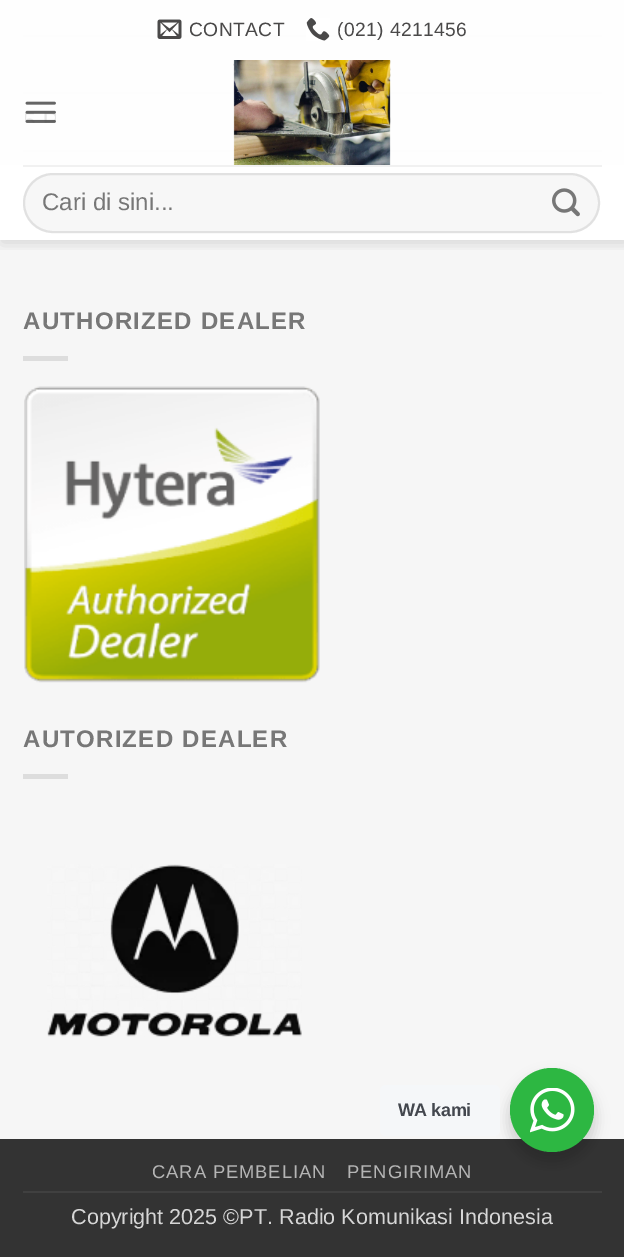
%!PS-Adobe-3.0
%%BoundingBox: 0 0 624 1257
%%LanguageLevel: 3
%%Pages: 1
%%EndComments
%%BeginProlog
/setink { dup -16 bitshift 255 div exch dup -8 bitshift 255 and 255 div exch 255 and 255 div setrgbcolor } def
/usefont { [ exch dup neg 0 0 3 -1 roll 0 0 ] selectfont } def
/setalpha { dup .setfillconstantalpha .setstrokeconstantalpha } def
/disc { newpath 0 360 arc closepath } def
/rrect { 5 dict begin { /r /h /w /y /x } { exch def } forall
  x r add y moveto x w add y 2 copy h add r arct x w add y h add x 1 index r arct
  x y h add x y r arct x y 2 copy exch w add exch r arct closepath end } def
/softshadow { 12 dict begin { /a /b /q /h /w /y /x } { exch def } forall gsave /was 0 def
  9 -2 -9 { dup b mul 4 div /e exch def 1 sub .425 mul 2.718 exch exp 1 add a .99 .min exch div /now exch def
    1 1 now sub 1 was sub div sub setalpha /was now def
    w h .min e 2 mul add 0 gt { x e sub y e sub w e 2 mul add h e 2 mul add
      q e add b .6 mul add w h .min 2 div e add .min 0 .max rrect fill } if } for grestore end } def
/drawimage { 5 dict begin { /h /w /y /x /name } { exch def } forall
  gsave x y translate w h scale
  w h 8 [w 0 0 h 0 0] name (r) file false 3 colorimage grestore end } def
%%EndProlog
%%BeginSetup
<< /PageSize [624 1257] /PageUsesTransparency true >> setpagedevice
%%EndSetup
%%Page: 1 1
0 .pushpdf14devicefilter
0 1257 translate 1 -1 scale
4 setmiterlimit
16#F6F6F6 setink
0 0 624 1257 rectfill
[
    [23 35 579 2 16#ECECEC]
    [23 92 579 2 16#ECECEC]
    [23 150 579 2 16#ECECEC]
] { aload pop setink rectfill } forall
gsave
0 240 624 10 rectclip
16#000000 setink
2 2 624 240 0 7.5 0.15 softshadow
grestore
0.9 setalpha
16#FFFFFF setink
0 0 624 165 rectfill
1 setalpha
(img1.raw) 157 19 25 20 drawimage
/LiberationSans-Regular 19.25 usefont
16#4A4949 setink
189 36 moveto 0.4 0 (CONTACT) ashow
(img2.raw) 306 18 24 23 drawimage
337 36 moveto 0.4 0 (\(021\) 4211456) ashow
(img3.raw) 25 101 31 22 drawimage
(img4.raw) 233 60 158 105 drawimage
16#FFFFFF setink
0 165 624 75 rectfill
16#F1F1F1 setink
23 165 579 2 rectfill
16#F7F7F7 setink
23 173 577 60 30 rrect fill
0.09 setalpha
16#000000 setink
2 setlinewidth
24 174 575 58 29 rrect stroke
/LiberationSans-Regular 24 usefont
1 setalpha
16#777777 setink
42 210 moveto (Cari di sini...) show
(img5.raw) 552 188 28 29 drawimage
/LiberationSans-Bold 24 usefont
23 329 moveto 1.25 0 (AUTHORIZED DEALER) ashow
16#DDDDDD setink
23 356 45 5 rectfill
(img6.raw) 24 386 296 297 drawimage
16#777777 setink
23 747 moveto 1.25 0 (AUTORIZED DEALER) ashow
16#DDDDDD setink
23 774 45 5 rectfill
(img7.raw) 47 864 255 173 drawimage
16#333333 setink
0 1139 624 118 rectfill
16#404040 setink
23 1191 579 2 rectfill
/LiberationSans-Regular 18.4 usefont
16#B5B5B5 setink
152 1178 moveto 0.9 0 (CARA PEMBELIAN) ashow
347 1178 moveto 0.9 0 (PENGIRIMAN) ashow
/LiberationSans-Regular 21.6 usefont
16#D6D6D6 setink
71 1224 moveto (Copyright 2025 ©PT. Radio Komunikasi Indonesia) show
16#000000 setink
507 1074 90 90 45 6 0.14 softshadow
16#F5F7F9 setink
380 1085 120 51 6 rrect fill
/LiberationSans-Bold 18 usefont
16#43474E setink
398 1116 moveto -0.5 0 (WA kami) ashow
16#2DB742 setink
552 1110 42 disc fill
(img8.raw) 530 1088 45 45 drawimage
.poppdf14devicefilter showpage
%%EOF
